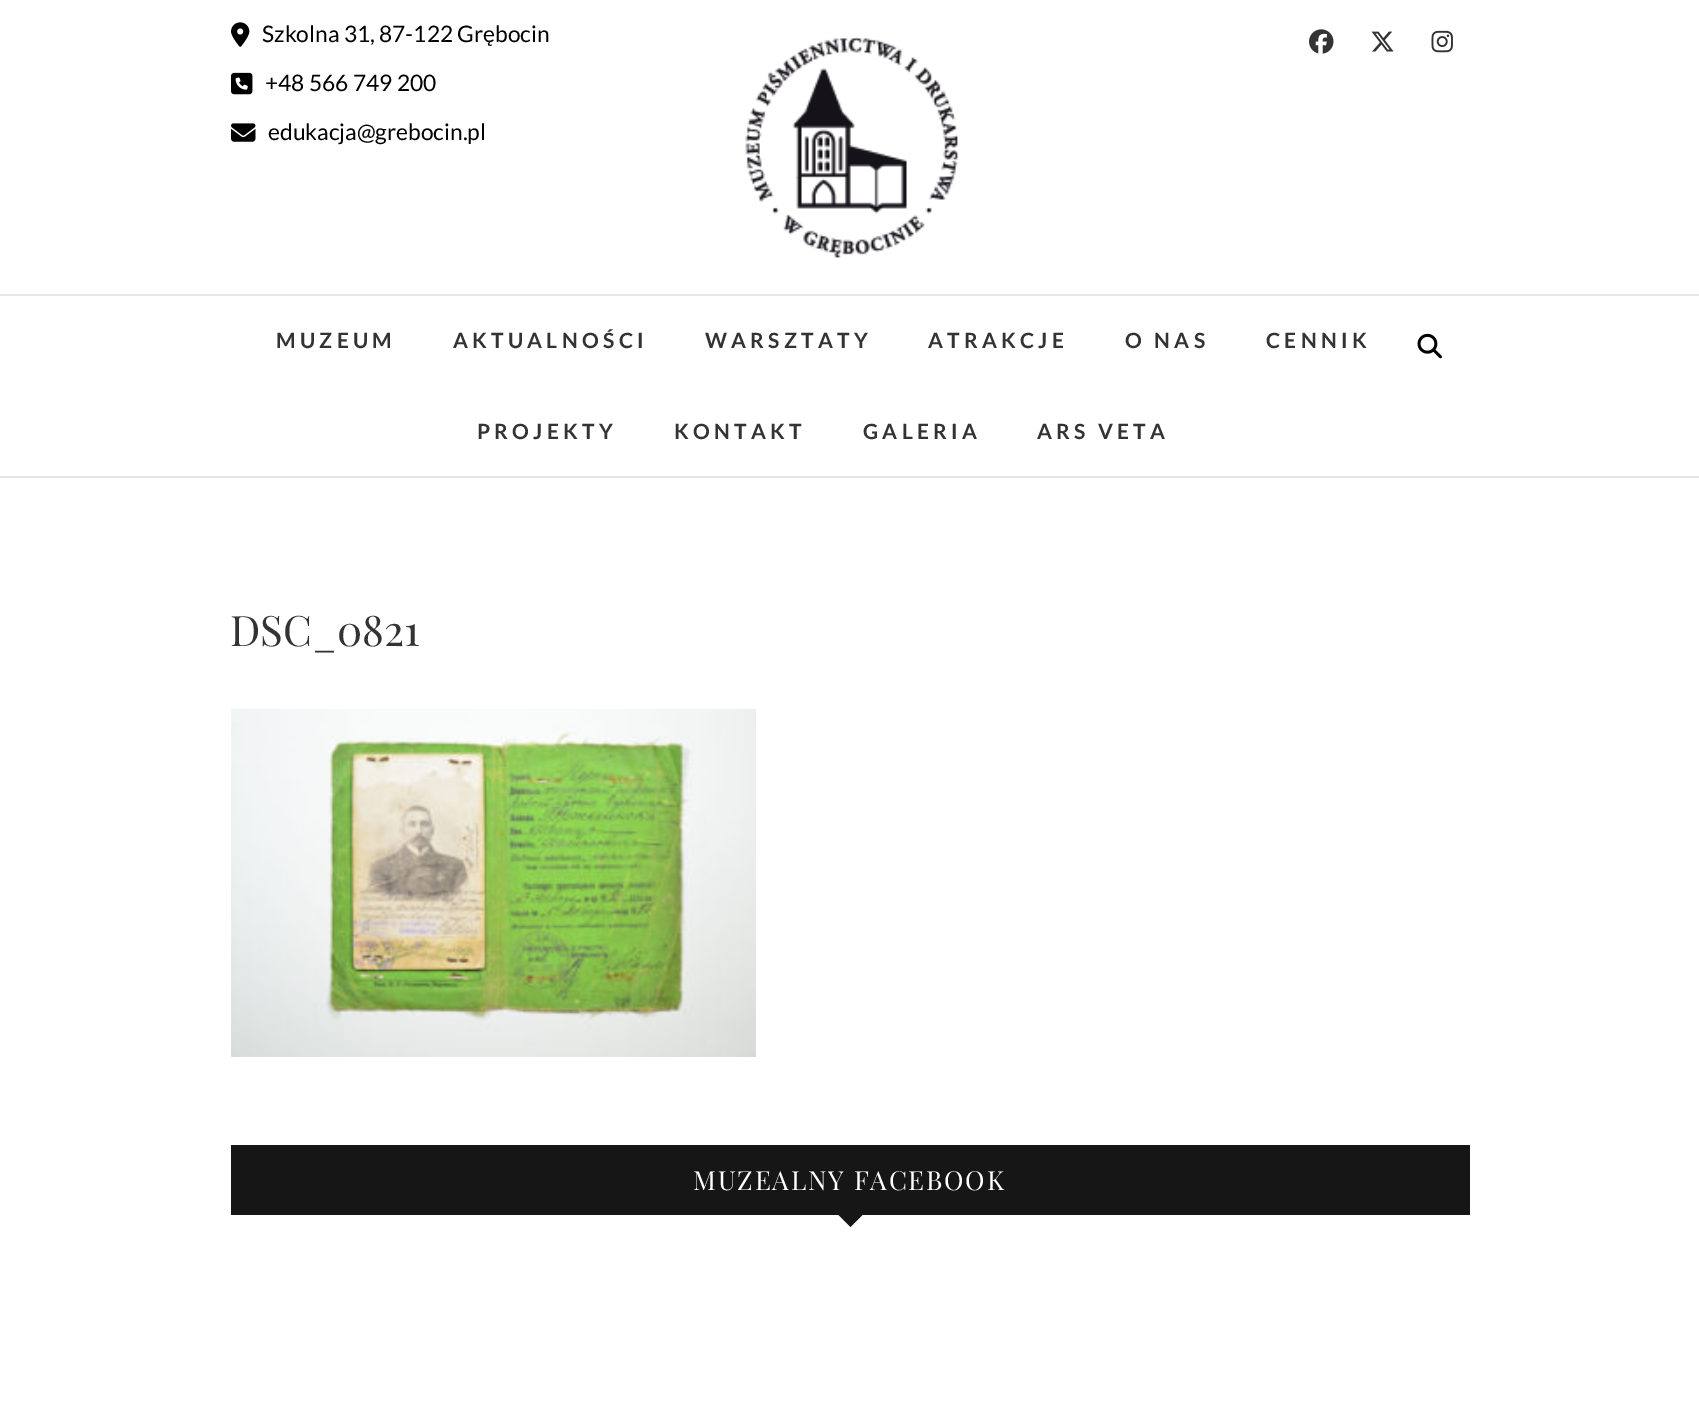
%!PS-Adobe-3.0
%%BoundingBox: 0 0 1699 1425
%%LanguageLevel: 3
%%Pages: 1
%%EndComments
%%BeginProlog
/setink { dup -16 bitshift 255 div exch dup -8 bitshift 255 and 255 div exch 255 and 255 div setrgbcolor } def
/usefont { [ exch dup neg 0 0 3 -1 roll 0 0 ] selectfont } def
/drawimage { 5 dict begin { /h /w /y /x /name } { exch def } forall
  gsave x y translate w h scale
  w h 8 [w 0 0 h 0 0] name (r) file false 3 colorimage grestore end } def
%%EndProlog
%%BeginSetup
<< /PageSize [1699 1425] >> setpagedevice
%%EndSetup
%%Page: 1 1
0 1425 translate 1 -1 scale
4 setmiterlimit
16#FFFFFF setink
0 0 1699 1425 rectfill
16#E6E6E6 setink
0 294 1699 2 rectfill
(img1.raw) 231 22 19 25 drawimage
/Lato-Regular 22.75 usefont
16#000000 setink
262 42 moveto (Szkolna 31, 87-122 Grębocin) show
(img2.raw) 231 72 22 23 drawimage
265 91 moveto (+48 566 749 200) show
(img3.raw) 231 123 25 19 drawimage
268 140 moveto (edukacja@grebocin.pl) show
(img4.raw) 745 36 213 222 drawimage
(img5.raw) 1309 29 25 25 drawimage
(img6.raw) 1371 31 23 21 drawimage
(img7.raw) 1431 30 22 23 drawimage
16#E6E6E6 setink
0 476 1699 2 rectfill
/Lato-Bold 21 usefont
16#333333 setink
276 348 moveto 4.25 0 (MUZEUM) ashow
453 348 moveto 4.25 0 (AKTUALNOŚCI) ashow
705 348 moveto 4.25 0 (WARSZTATY) ashow
928 348 moveto 4.25 0 (ATRAKCJE) ashow
1125 348 moveto 4.25 0 (O NAS) ashow
1266 348 moveto 4.25 0 (CENNIK) ashow
477 439 moveto 4.25 0 (PROJEKTY) ashow
674 439 moveto 4.25 0 (KONTAKT) ashow
863 439 moveto 4.25 0 (GALERIA) ashow
1037 439 moveto 4.25 0 (ARS VETA) ashow
(img8.raw) 1417 333 25 26 drawimage
/PlayfairDisplay-Regular 42 usefont
230 646 moveto (DSC_0821) show
(img9.raw) 231 708 525 349 drawimage
16#161616 setink
231 1145 1239 70 rectfill
/PlayfairDisplay-Regular 26.25 usefont
16#FFFFFF setink
693 1190 moveto 1.75 0 (MUZEALNY FACEBOOK) ashow
16#161616 setink
838 1214.5 moveto 863 1214.5 lineto 850.5 1227 lineto closepath fill
showpage
%%EOF
